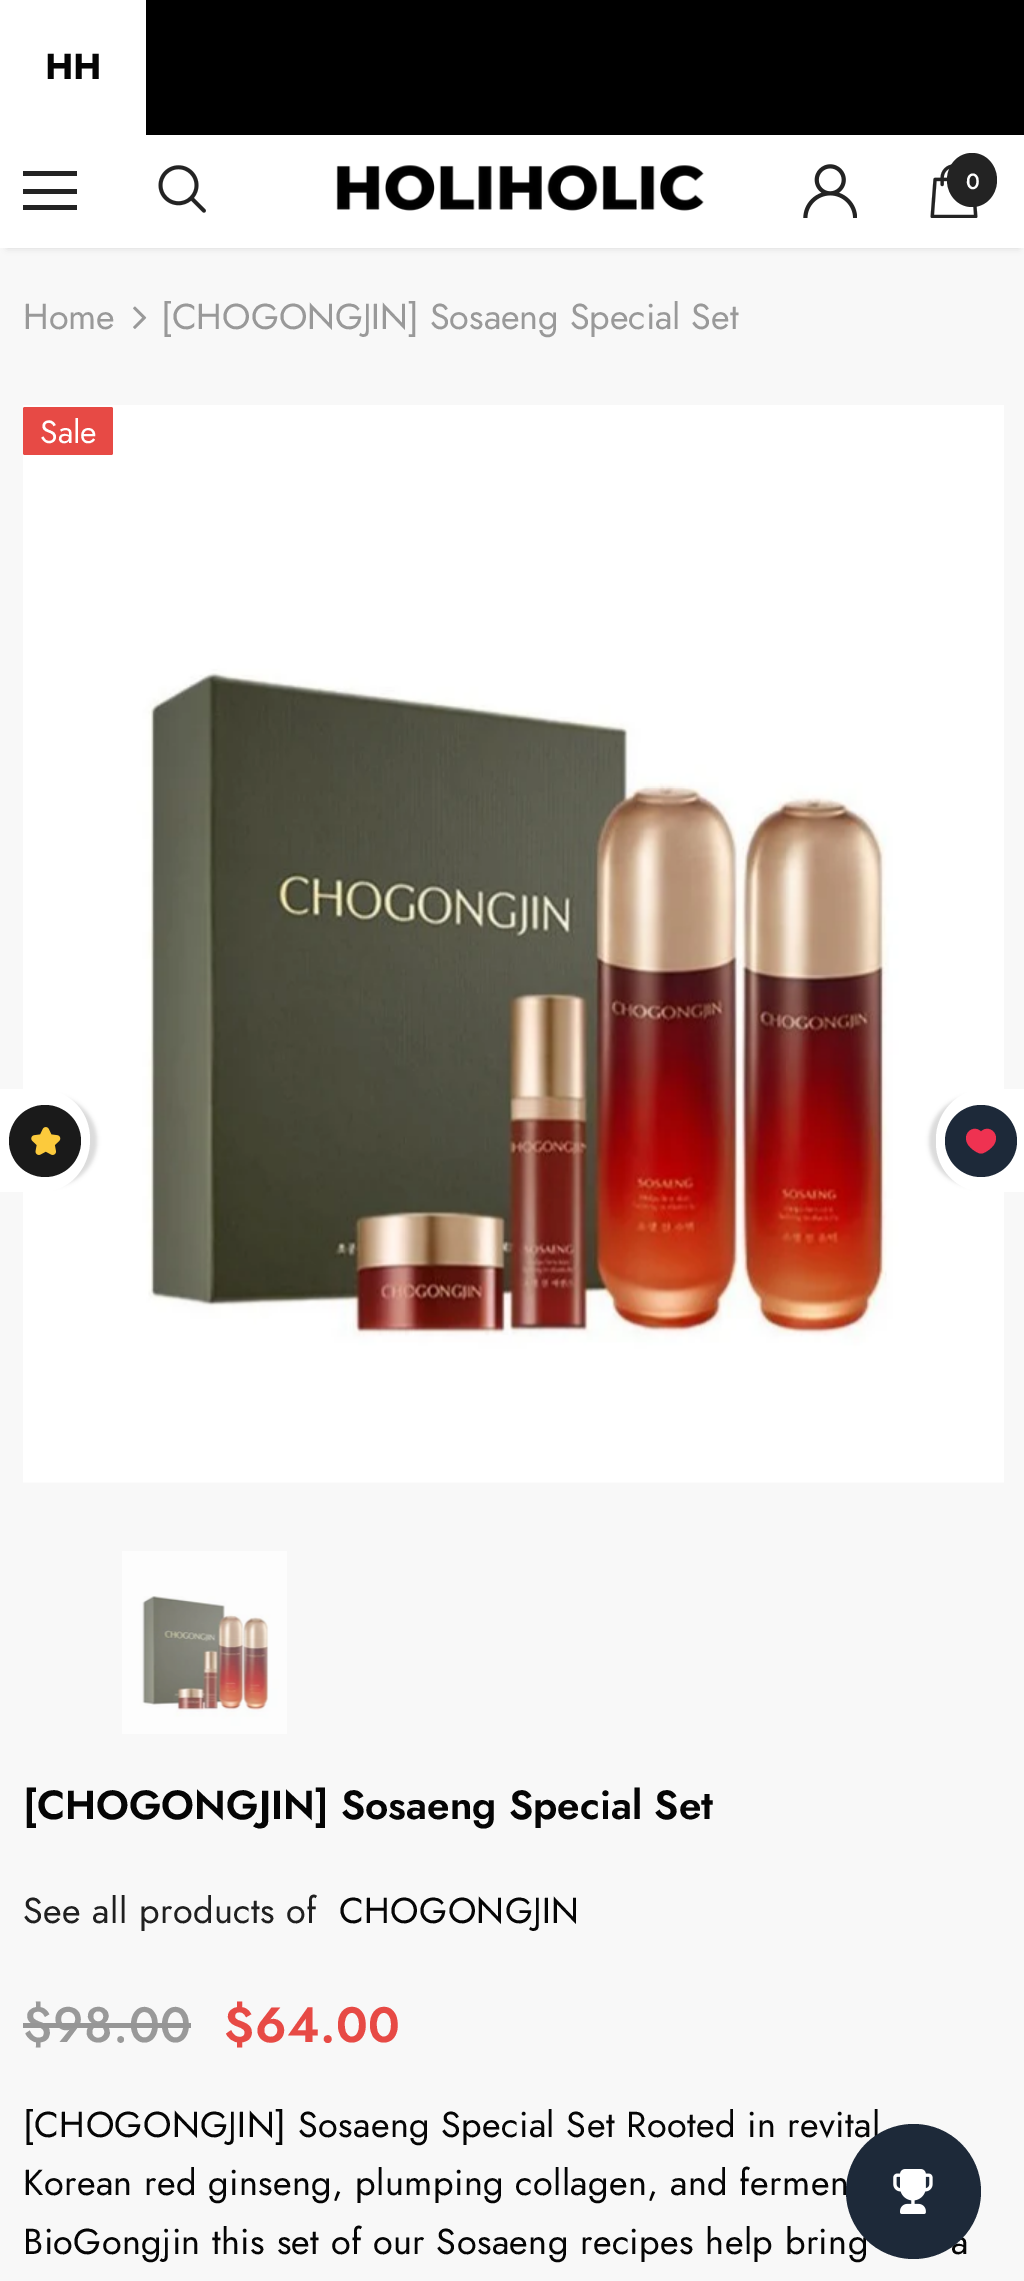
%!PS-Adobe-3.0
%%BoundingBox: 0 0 1024 2281
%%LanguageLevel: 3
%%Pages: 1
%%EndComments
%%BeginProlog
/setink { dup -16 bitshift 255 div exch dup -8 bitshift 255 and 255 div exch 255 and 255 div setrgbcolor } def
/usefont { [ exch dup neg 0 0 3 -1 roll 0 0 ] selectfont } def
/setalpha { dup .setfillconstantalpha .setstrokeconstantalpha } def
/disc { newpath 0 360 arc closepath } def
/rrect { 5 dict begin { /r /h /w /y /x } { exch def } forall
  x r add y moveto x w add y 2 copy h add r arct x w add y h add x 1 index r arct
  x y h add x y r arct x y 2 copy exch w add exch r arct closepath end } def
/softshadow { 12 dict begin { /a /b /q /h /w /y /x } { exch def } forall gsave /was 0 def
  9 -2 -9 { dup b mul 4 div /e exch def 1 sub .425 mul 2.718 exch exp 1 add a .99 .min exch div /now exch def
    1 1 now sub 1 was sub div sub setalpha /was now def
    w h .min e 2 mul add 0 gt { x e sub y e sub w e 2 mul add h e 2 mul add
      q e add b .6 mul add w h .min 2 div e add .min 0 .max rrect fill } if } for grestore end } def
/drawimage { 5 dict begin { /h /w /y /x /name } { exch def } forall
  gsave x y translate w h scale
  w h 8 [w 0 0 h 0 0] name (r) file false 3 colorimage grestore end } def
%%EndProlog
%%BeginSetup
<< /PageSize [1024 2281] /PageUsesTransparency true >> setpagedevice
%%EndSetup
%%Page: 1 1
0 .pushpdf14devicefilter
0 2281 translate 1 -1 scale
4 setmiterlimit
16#F8F8F8 setink
0 0 1024 2281 rectfill
16#000000 setink
146 0 878 135 rectfill
16#FFFFFF setink
0 0 146 135 rectfill
/Jost-Bold 36 usefont
16#050505 setink
45 79 moveto (HH) show
16#000000 setink
7 149 1012 99 0 3.5 0.12 softshadow
[
    [0 135 1024 113 16#FFFFFF]
    [23 171 54 5 16#232323]
    [23 189 54 5 16#232323]
    [23 205 54 5 16#232323]
] { aload pop setink rectfill } forall
(img1.raw) 158 165 48 48 drawimage
(img2.raw) 336 165 368 46 drawimage
(img3.raw) 803 164 54 54 drawimage
(img4.raw) 930 164 48 54 drawimage
972 153 moveto 986 153 997 165 997 180 curveto 997 195 986 207 972 207 curveto 958 207 947 195 947 180 curveto 947 165 958 153 972 153 curveto closepath fill
/Jost-Medium 22 usefont
16#FFFFFF setink
966 189 moveto (0) show
/Jost-Regular 36 usefont
16#999999 setink
23 329 moveto (Home) show
(img5.raw) 133 306 14 23 drawimage
161 329 moveto ([CHOGONGJIN] Sosaeng Special Set) show
(img6.raw) 23 405 981 1078 drawimage
16#E74A45 setink
23 407 90 48 2 rrect fill
/Jost-Regular 32 usefont
16#FFFFFF setink
40 443 moveto (Sale) show
(img7.raw) 122 1551 165 183 drawimage
/Jost-SemiBold 40.5 usefont
16#050505 setink
23 1819 moveto ([CHOGONGJIN] Sosaeng Special Set) show
/Jost-Regular 36 usefont
16#202020 setink
23 1923 moveto 0.45 0 (See all products of) ashow
16#050505 setink
339 1923 moveto 0.45 0 (CHOGONGJIN) ashow
/Jost-Medium 49.5 usefont
16#999999 setink
23 2042 moveto 0.45 0 ($98.00) ashow
16#969696 setink
23 2023 168 5 rectfill
/Jost-SemiBold 49.5 usefont
16#E74A45 setink
224 2042 moveto 0.45 0 ($64.00) ashow
/Jost-Regular 36 usefont
16#050505 setink
23 2137 moveto 0.45 0 ([CHOGONGJIN] Sosaeng Special Set Rooted in revital) ashow
23 2195 moveto 0.45 0 (Korean red ginseng, plumping collagen, and fermen) ashow
23 2254 moveto 0.45 0 (BioGongjin this set of our Sosaeng recipes help bring) ashow
951 2254 moveto 0.45 0 (a) ashow
16#DADADA setink
-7 1096 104 90 50 2 1 softshadow
16#FFFFFF setink
0 1192 moveto 0 1089 lineto 27 1089 lineto 38 1089 49 1089 60 1093 curveto 109 1114 95 1192 40 1192 curveto closepath fill
16#1A1A1A setink
45 1141 36 disc fill
(img8.raw) 31 1127 30 28 drawimage
16#DADADA setink
929 1096 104 90 50 2 1 softshadow
16#FFFFFF setink
936 1143 moveto 936 1139 lineto 936 1112 958 1089 985 1089 curveto 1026 1089 lineto 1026 1192 lineto 985 1192 lineto 958 1192 936 1170 936 1143 curveto closepath fill
16#1D2939 setink
981 1141 36 disc fill
16#EF3251 setink
981 1131.5 moveto 971.5 1122.5 957 1138.5 973.5 1150 curveto 975.5 1151.5 978.5 1153.5 981 1153.5 curveto 983.5 1153.5 986.5 1151.5 988.5 1150 curveto 1005 1138.5 990.5 1122.5 981 1131.5 curveto closepath fill
16#1D2939 setink
913.5 2191.5 67.5 disc fill
(img9.raw) 893 2169 40 45 drawimage
.poppdf14devicefilter showpage
%%EOF
